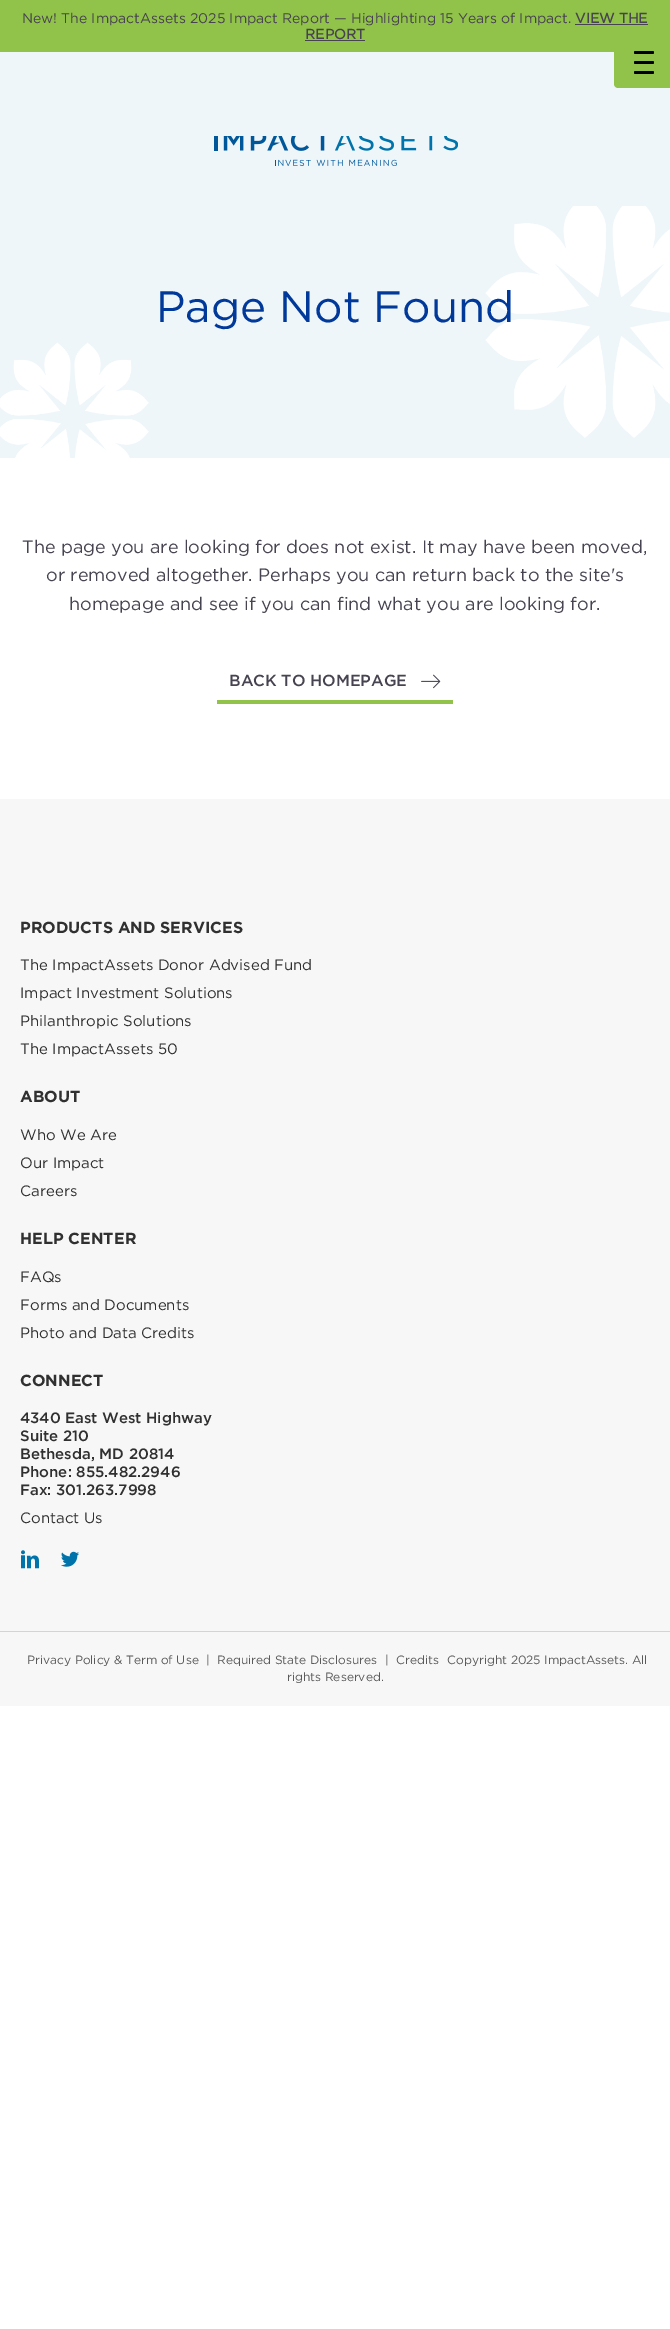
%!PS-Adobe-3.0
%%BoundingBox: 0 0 670 2329
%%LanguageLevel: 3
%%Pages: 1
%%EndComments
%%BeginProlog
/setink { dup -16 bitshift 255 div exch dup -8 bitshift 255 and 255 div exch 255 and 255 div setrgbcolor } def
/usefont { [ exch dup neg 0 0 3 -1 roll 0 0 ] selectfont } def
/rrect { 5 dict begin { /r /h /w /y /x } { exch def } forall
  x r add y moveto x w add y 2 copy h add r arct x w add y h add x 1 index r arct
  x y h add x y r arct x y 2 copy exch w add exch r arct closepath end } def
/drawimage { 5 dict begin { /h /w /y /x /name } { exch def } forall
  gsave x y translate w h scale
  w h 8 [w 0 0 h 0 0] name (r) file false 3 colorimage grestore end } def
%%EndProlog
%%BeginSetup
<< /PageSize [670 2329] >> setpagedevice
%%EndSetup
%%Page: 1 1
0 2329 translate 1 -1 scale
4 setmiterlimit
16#FFFFFF setink
0 0 670 2329 rectfill
16#91C24A setink
0 0 670 52 rectfill
/Gotham-Regular 14 usefont
16#474350 setink
22 23 moveto (New! The ImpactAssets 2025 Impact Report — Highlighting 15 Years of Impact.) show
/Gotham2-Bold 14 usefont
575 23 moveto (VIEW THE) show
575 24 73 1 rectfill
305 39 moveto (REPORT) show
305 40 60 1 rectfill
16#EEF6FA setink
0 52 670 154 rectfill
(img1.raw) 214 136 244 30 drawimage
16#91C24A setink
618 38 moveto 670 38 lineto 670 88 lineto 618 88 lineto 616 88 614 86 614 84 curveto 614 42 lineto 614 40 616 38 618 38 curveto closepath fill
16#000000 setink
634 61 20 3 1.5 rrect fill
634 51 20 3 1.5 rrect fill
634 71 20 3 1.5 rrect fill
(img2.raw) 0 206 670 252 drawimage
/Gotham-Regular 44 usefont
16#00399A setink
156 322 moveto (Page Not Found) show
/Gotham-Regular 18 usefont
16#474350 setink
[
    [(The page you are looking for does not exist. It may have been moved,) 22 553]
    [(or removed altogether. Perhaps you can return back to the site's) 46 581]
    [(homepage and see if you can find what you are looking for.) 69 610]
] { aload pop moveto show } forall
16#91C24A setink
217 700 236 4 rectfill
/Gotham-Medium 16 usefont
16#474350 setink
229 686 moveto (BACK TO HOMEPAGE) show
(img3.raw) 421 674 20 15 drawimage
16#F7F7F7 setink
0 799 670 832 rectfill
16#D4D4D4 setink
0 1631 670 1 rectfill
/Gotham-Bold 16 usefont
16#303030 setink
20 933 moveto (PRODUCTS AND SERVICES) show
/Gotham-Regular 15 usefont
[
    [(The ImpactAssets Donor Advised Fund) 20 970]
    [(Impact Investment Solutions) 20 998]
    [(Philanthropic Solutions) 20 1026]
    [(The ImpactAssets 50) 20 1054]
] { aload pop moveto show } forall
/Gotham-Bold 16 usefont
20 1102 moveto (ABOUT) show
/Gotham-Regular 15 usefont
[
    [(Who We Are) 20 1140]
    [(Our Impact) 20 1168]
    [(Careers) 20 1196]
] { aload pop moveto show } forall
/Gotham-Bold 16 usefont
20 1244 moveto (HELP CENTER) show
/Gotham-Regular 15 usefont
[
    [(FAQs) 20 1282]
    [(Forms and Documents) 20 1310]
    [(Photo and Data Credits) 20 1338]
] { aload pop moveto show } forall
/Gotham-Bold 16 usefont
20 1386 moveto (CONNECT) show
/Gotham-Medium 15 usefont
[
    [(4340 East West Highway) 20 1423]
    [(Suite 210) 20 1441]
    [(Bethesda, MD 20814) 20 1459]
    [(Phone: 855.482.2946) 20 1477]
    [(Fax: 301.263.7998) 20 1495]
] { aload pop moveto show } forall
/Gotham-Regular 15 usefont
20 1523 moveto (Contact Us) show
(img4.raw) 21 1550 18 19 drawimage
(img5.raw) 61 1551 18 16 drawimage
16#F7F7F7 setink
0 1632 670 74 rectfill
/Gotham-Regular 12 usefont
16#5A5A5A setink
[
    [(Privacy Policy & Term of Use) 27 1664]
    [(|) 206 1664]
    [(Required State Disclosures) 217 1664]
    [(|) 385 1664]
    [(Credits) 396 1664]
    [(Copyright 2025 ImpactAssets. All) 447 1664]
    [(rights Reserved.) 287 1681]
] { aload pop moveto show } forall
showpage
%%EOF
